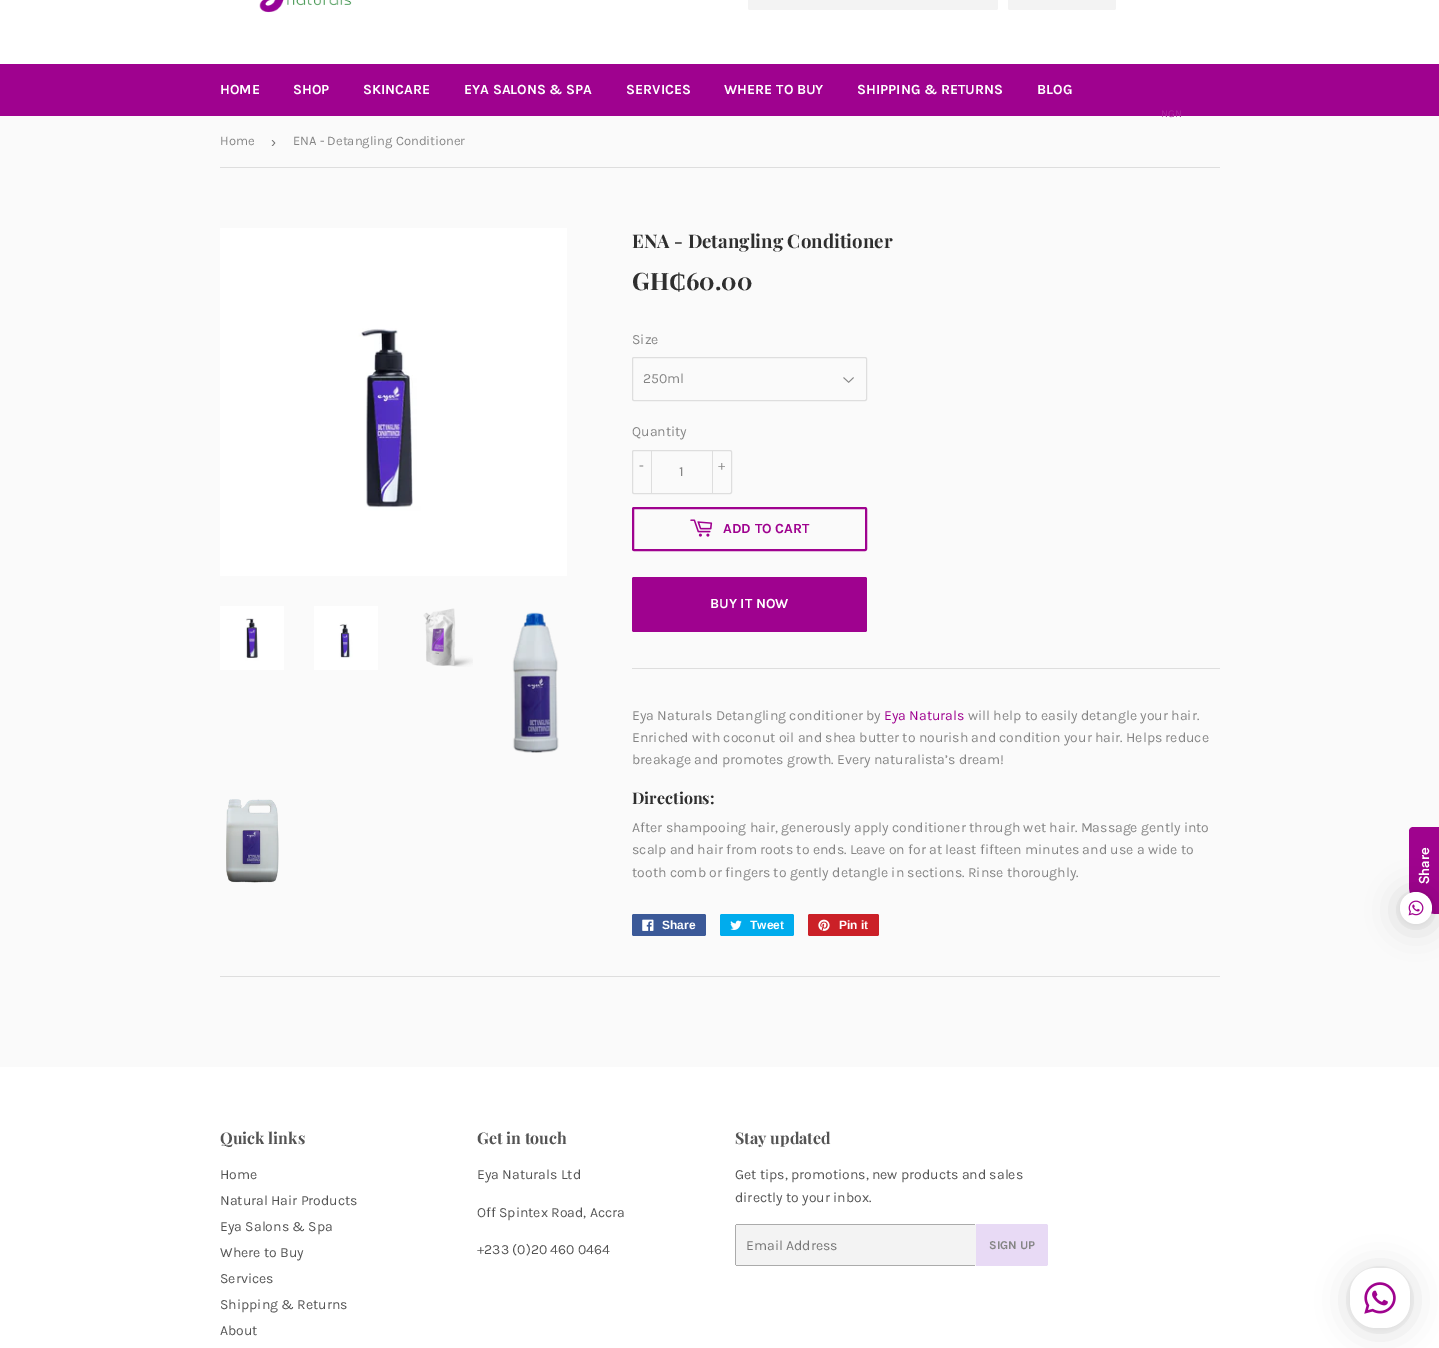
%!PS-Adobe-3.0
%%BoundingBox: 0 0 1439 1348
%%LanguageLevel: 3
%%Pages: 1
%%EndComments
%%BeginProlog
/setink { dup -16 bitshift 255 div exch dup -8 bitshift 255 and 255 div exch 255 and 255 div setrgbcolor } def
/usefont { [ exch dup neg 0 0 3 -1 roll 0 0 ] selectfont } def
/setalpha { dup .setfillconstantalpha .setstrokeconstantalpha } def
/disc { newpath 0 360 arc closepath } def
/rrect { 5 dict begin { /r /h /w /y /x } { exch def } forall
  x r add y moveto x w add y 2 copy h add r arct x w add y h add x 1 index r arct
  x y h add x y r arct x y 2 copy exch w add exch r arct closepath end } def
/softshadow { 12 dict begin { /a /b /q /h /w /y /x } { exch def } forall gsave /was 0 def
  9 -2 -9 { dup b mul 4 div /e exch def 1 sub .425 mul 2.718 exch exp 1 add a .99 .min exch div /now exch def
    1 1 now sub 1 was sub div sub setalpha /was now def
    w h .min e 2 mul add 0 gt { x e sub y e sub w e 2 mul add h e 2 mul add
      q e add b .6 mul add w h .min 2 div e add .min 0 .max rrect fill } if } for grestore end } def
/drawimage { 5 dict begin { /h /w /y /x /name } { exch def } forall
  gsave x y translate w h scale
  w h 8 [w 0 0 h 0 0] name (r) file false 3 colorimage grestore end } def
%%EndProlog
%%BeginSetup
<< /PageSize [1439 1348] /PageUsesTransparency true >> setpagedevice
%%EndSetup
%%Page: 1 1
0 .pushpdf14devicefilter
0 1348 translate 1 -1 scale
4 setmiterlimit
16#FAFAFA setink
0 0 1439 1348 rectfill
16#9F028F setink
0 64 1439 52 rectfill
/Karla-Bold 14 usefont
16#FFFFFF setink
[
    [(HOME) 220 94]
    [(SHOP) 293 94]
    [(SKINCARE) 363 94]
    [(EYA SALONS & SPA) 464 94]
    [(SERVICES) 626 94]
    [(WHERE TO BUY) 724 94]
    [(SHIPPING & RETURNS) 857 94]
    [(BLOG) 1037 94]
] { aload pop moveto show } forall
0 0 1439 64 rectfill
(img1.raw) 259 0 93 13 drawimage
16#F3F3F3 setink
748 -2 250 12 2 rrect fill
1008 -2 108 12 2 rrect fill
/Karla-Regular 10.5 usefont
16#AC269F setink
1161 117 moveto (NGN) show
16#DEDEDE setink
220 167 1000 1 rectfill
/Karla-Regular 13 usefont
16#858585 setink
220 145 moveto (Home) show
/LiberationSans-Regular 15 usefont
16#767676 setink
271 147 moveto (›) show
/Karla-Regular 13 usefont
16#858585 setink
293 145 moveto (ENA - Detangling Conditioner) show
(img2.raw) 220 228 347 348 drawimage
(img3.raw) 220 606 64 64 drawimage
(img4.raw) 314 606 64 64 drawimage
(img5.raw) 423 608 50 59 drawimage
(img6.raw) 512 612 47 141 drawimage
(img7.raw) 226 799 53 84 drawimage
/PlayfairDisplay-Bold 18.7 usefont
16#2F2F2F setink
632 248 moveto (ENA - Detangling Conditioner) show
/PlayfairDisplay-Bold 24 usefont
632 290 moveto (GH) show
/LiberationSerif-Bold 24 usefont
669 290 moveto (₵) show
/PlayfairDisplay-Bold 24 usefont
686 290 moveto (60.00) show
/Karla-Regular 14 usefont
16#858585 setink
632 344 moveto (Size) show
(img8.raw) 843 377 11 6 drawimage
16#DEDEDE setink
632.5 357.5 234 43 1.5 rrect stroke
16#858585 setink
643 383 moveto (250ml) show
632 436 moveto (Quantity) show
16#DEDEDE setink
632.5 450.5 99 43 1.5 rrect stroke
651 450 1 44 rectfill
16#858585 setink
639 470 moveto (-) show
16#DEDEDE setink
712 450 1 44 rectfill
16#858585 setink
718 470 moveto (+) show
679 476 moveto (1) show
16#9F028F setink
2 setlinewidth
633 508 233 42 1 rrect stroke
(img9.raw) 690 519 23 18 drawimage
/Karla-Bold 14 usefont
723 533 moveto (ADD TO CART) show
632 577 235 55 2 rrect fill
16#FFFFFF setink
710 608 moveto (BUY IT NOW) show
16#DEDEDE setink
632 668 588 1 rectfill
/Karla-Regular 14 usefont
16#858585 setink
632 720 moveto (Eya Naturals Detangling conditioner by) show
16#9F028F setink
884 720 moveto (Eya Naturals) show
16#858585 setink
[
    [(will help to easily detangle your hair.) 968 720]
    [(Enriched with coconut oil and shea butter to nourish and condition your hair. Helps reduce) 632 742]
    [(breakage and promotes growth. Every naturalista’s dream!) 632 764]
] { aload pop moveto show } forall
/PlayfairDisplay-Bold 16 usefont
16#2F2F2F setink
632 804 moveto (Directions:) show
/Karla-Regular 14 usefont
16#858585 setink
[
    [(After shampooing hair, generously apply conditioner through wet hair. Massage gently into) 632 832]
    [(scalp and hair from roots to ends. Leave on for at least fifteen minutes and use a wide to) 632 854]
    [(tooth comb or fingers to gently detangle in sections. Rinse thoroughly.) 632 877]
] { aload pop moveto show } forall
16#3B5998 setink
632 914 74 22 2 rrect fill
(img10.raw) 642 919 12 12 drawimage
/LiberationSans-Bold 12 usefont
16#FFFFFF setink
662 929 moveto (Share) show
16#00ACED setink
720 914 74 22 2 rrect fill
(img11.raw) 730 920 12 10 drawimage
16#FFFFFF setink
750 929 moveto (Tweet) show
16#CB2027 setink
808 914 71 22 2 rrect fill
(img12.raw) 818 919 12 12 drawimage
16#FFFFFF setink
839 929 moveto (Pin it) show
16#DEDEDE setink
220 976 1000 1 rectfill
16#9F038E setink
1439 827 moveto 1439 914 lineto 1437 914 lineto 1422 914 1409 901 1409 886 curveto 1409 831 lineto 1409 829 1411 827 1413 827 curveto closepath fill
16#000000 setink
1400 894 32 32 16 16 0.16 softshadow
1400 893 32 32 16 3 0.06 softshadow
16#FFFFFF setink
1416 908 16 disc fill
(img13.raw) 1408 900 16 16 drawimage
/Circular-Medium 14 usefont
gsave 1429 884 translate -90 rotate 0 0 moveto (Share) show grestore
0 1067 1439 281 rectfill
/PlayfairDisplay-Bold 16 usefont
16#545454 setink
220 1144 moveto (Quick links) show
/Karla-Regular 14 usefont
[
    [(Home) 220 1179]
    [(Natural Hair Products) 220 1205]
    [(Eya Salons & Spa) 220 1231]
    [(Where to Buy) 220 1257]
    [(Services) 220 1283]
    [(Shipping & Returns) 220 1309]
    [(About) 220 1335]
] { aload pop moveto show } forall
/PlayfairDisplay-Bold 16 usefont
477 1144 moveto (Get in touch) show
/Karla-Regular 14 usefont
[
    [(Eya Naturals Ltd) 477 1179]
    [(Off Spintex Road, Accra) 477 1217]
    [(+233 \(0\)20 460 0464) 477 1254]
] { aload pop moveto show } forall
/PlayfairDisplay-Bold 16 usefont
735 1144 moveto (Stay updated) show
/Karla-Regular 14 usefont
735 1179 moveto (Get tips, promotions, new products and sales) show
735 1202 moveto (directly to your inbox.) show
16#F3F3F3 setink
735 1224 241 42 2 rrect fill
[
    [736 1224 239 1 16#ABABAB]
    [736 1265 239 1 16#ABABAB]
    [735 1225 1 40 16#ABABAB]
] { aload pop setink rectfill } forall
16#767676 setink
746 1250 moveto (Email Address) show
16#E8DAF5 setink
976 1224 moveto 1046 1224 lineto 1047 1224 1048 1225 1048 1226 curveto 1048 1264 lineto 1048 1265 1047 1266 1046 1266 curveto 976 1266 lineto closepath fill
/Karla-Bold 12 usefont
16#858585 setink
989 1249 moveto (SIGN UP) show
16#000000 setink
1350 1270 60 60 26 16 0.16 softshadow
1350 1269 60 60 26 3 0.06 softshadow
16#FFFFFF setink
1350 1268 60 60 26 rrect fill
(img14.raw) 1364 1282 32 32 drawimage
.poppdf14devicefilter showpage
%%EOF
